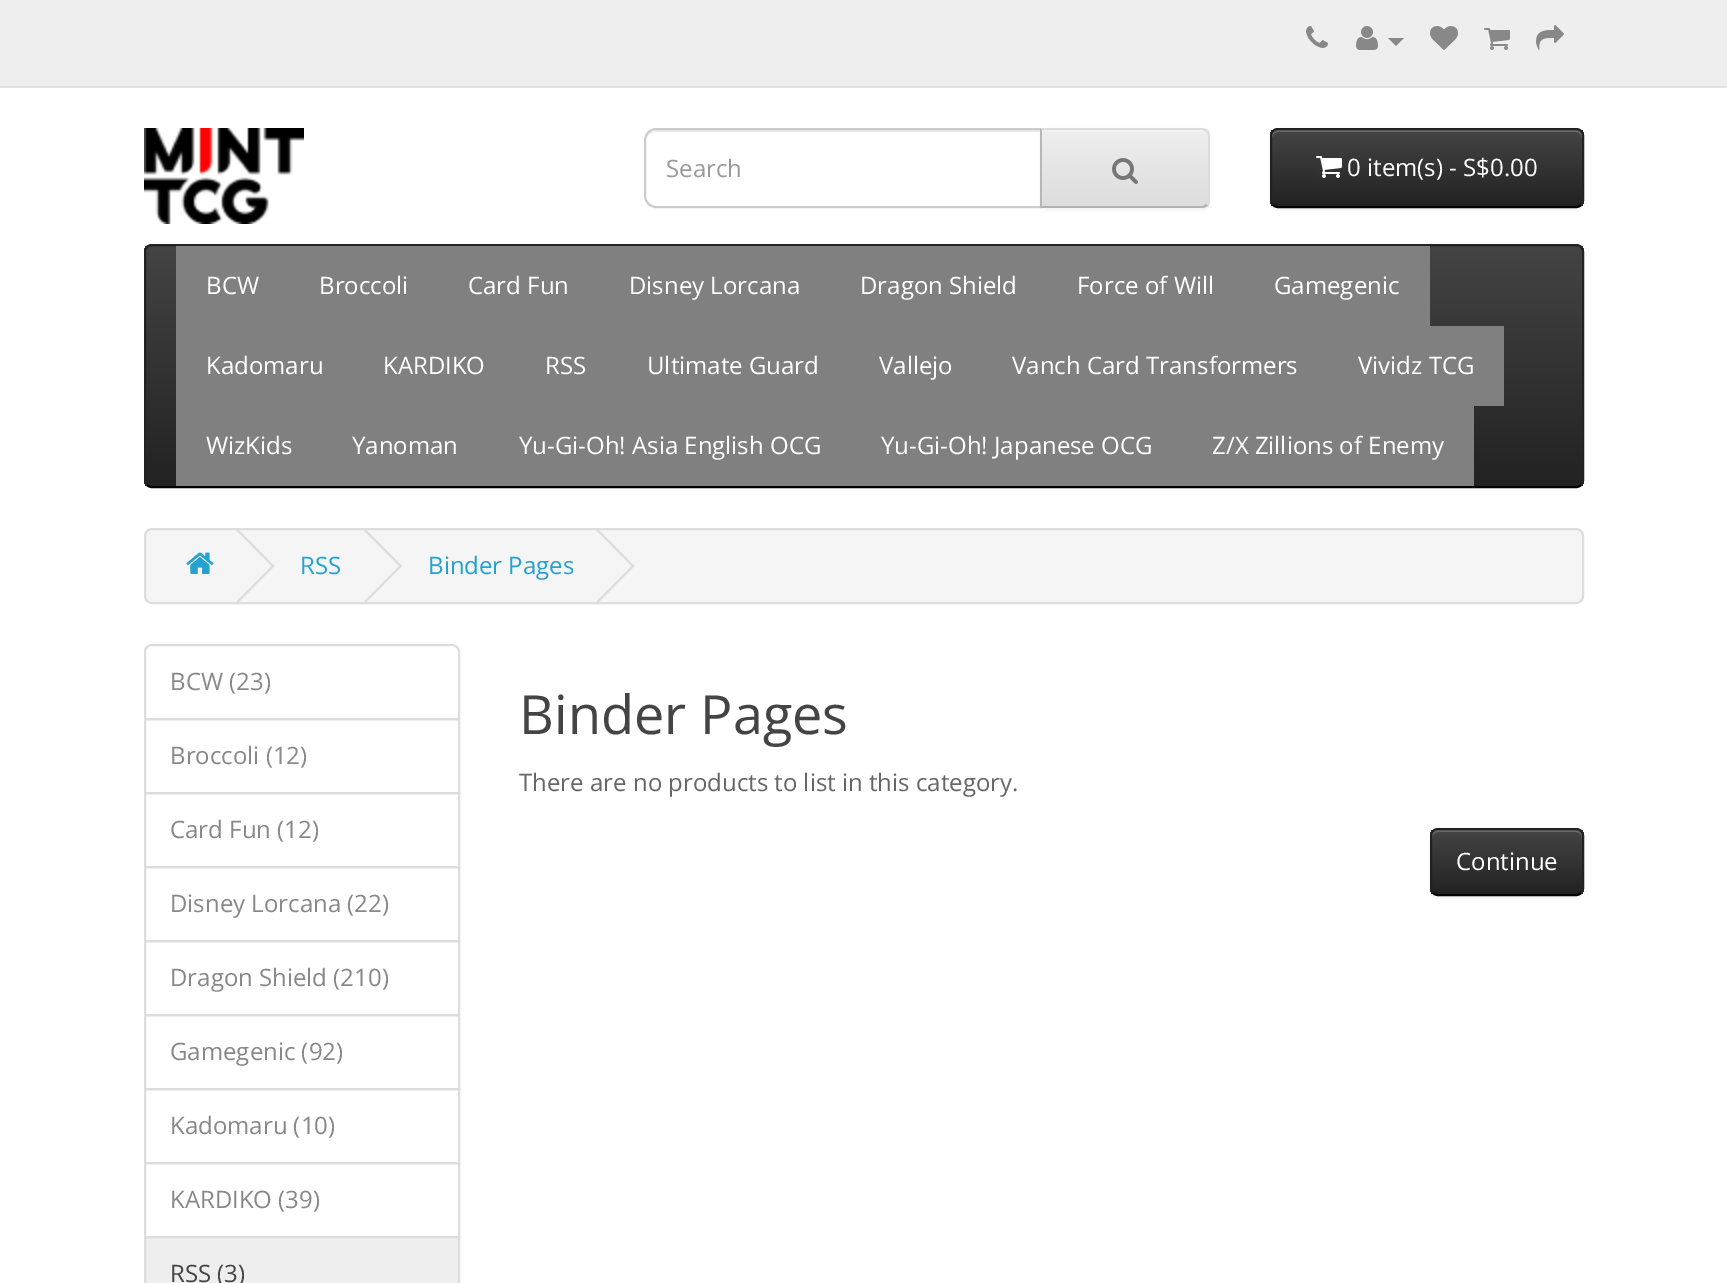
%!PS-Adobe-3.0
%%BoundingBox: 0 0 1727 1283
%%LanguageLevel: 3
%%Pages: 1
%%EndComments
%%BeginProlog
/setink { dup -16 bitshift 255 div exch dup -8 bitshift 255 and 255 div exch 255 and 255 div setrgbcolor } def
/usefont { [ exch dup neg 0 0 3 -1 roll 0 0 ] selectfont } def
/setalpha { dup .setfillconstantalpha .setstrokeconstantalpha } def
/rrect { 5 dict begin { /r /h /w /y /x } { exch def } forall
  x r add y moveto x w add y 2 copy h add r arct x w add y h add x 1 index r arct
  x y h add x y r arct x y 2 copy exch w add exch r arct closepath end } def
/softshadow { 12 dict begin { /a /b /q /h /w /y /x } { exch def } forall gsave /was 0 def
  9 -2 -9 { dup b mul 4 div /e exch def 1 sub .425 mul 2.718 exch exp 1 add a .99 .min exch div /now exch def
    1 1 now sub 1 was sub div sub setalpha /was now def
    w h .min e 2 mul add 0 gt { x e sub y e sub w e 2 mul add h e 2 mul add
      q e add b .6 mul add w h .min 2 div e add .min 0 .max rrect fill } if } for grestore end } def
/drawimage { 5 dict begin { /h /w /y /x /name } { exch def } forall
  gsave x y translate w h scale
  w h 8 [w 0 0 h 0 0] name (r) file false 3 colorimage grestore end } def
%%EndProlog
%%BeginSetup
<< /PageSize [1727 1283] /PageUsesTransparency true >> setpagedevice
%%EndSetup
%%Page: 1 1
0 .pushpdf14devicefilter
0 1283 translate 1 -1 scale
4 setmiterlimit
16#FFFFFF setink
0 0 1727 1283 rectfill
16#EEEEEE setink
0 0 1727 86 rectfill
16#E2E2E2 setink
0 86 1727 2 rectfill
(img1.raw) 1306 26 22 22 drawimage
(img2.raw) 1356 26 22 24 drawimage
16#888888 setink
1388 38 moveto 1404 38 lineto 1396 46 lineto closepath fill
(img3.raw) 1430 26 28 24 drawimage
(img4.raw) 1484 28 26 22 drawimage
(img5.raw) 1536 25 28 25 drawimage
(img6.raw) 144 128 160 96 drawimage
16#ECECEC setink
656 132 moveto 1040 132 lineto 1040 130 lineto 654 130 lineto 648 131 646 137 646 142 curveto 646 136 650 132 656 132 curveto closepath fill
16#CCCCCC setink
2 setlinewidth
656 129 moveto 1041 129 lineto 1041 207 lineto 656 207 lineto 650 207 645 202 645 196 curveto 645 140 lineto 645 134 650 129 656 129 curveto closepath stroke
/OpenSans-Regular 24 usefont
16#999999 setink
666 177 moveto (Search) show
16#000000 setink
1040 130 170 80 8 2 0.05 softshadow
gsave
1040 128 moveto 1202 128 lineto 1206.5 128 1210 131.5 1210 136 curveto 1210 200 lineto 1210 204.5 1206.5 208 1202 208 curveto 1040 208 lineto closepath clip newpath
gsave 1042 130 moveto 1210 130 lineto 1210 206 lineto 1042 206 lineto closepath clip newpath
<< /ShadingType 2 /ColorSpace /DeviceRGB /Coords [1125 130 1125 206] /Extend [true true] /Function << /FunctionType 2 /Domain [0 1] /C0 [0.933 0.933 0.933] /C1 [0.867 0.867 0.867] /N 1 >> >> shfill grestore
grestore
16#F1F1F1 setink
1042 132 moveto 1202 132 lineto 1205 132 1208 135 1208 138 curveto 1208 136 lineto 1208 133 1205 130 1202 130 curveto 1042 130 lineto closepath fill
16#DDDDDD setink
1040 128 moveto 1042 130 lineto 1203 130 lineto 1206 132 lineto 1208 130 lineto 1206 129 1204 128 1202 128 curveto closepath fill
1210 200 moveto 1210 136 lineto 1210 134 1209 132 1208 130 curveto 1206 132 lineto 1207 133 1208 134 1208 136 curveto 1208 200 lineto 1208 202 1207 203 1206 204 curveto 1208 206 lineto 1209 204 1210 202 1210 200 curveto closepath fill
16#B3B3B3 setink
1202 208 moveto 1204 208 1206 207 1208 206 curveto 1206 204 lineto 1203 206 lineto 1042 206 lineto 1040 208 lineto closepath fill
16#B7B7B7 setink
1040 128 moveto 1040 208 lineto 1042 206 lineto 1042 130 lineto closepath fill
(img7.raw) 1112 158 26 26 drawimage
16#000000 setink
1270 130 314 80 8 2 0.05 softshadow
gsave
1270 128 314 80 8 rrect clip newpath
gsave 1270 130 moveto 1584 130 lineto 1584 206 lineto 1270 206 lineto closepath clip newpath
<< /ShadingType 2 /ColorSpace /DeviceRGB /Coords [1427 130 1427 206] /Extend [true true] /Function << /FunctionType 2 /Domain [0 1] /C0 [0.267 0.267 0.267] /C1 [0.133 0.133 0.133] /N 1 >> >> shfill grestore
grestore
16#696969 setink
1278 132 moveto 1576 132 lineto 1579 132 1582 135 1582 138 curveto 1582 136 lineto 1582 133 1579 130 1576 130 curveto 1278 130 lineto 1275 130 1272 133 1272 136 curveto 1272 138 lineto 1272 135 1275 132 1278 132 curveto closepath fill
16#000000 setink
1581 205 moveto 1579.5 206.5 1578 207 1576 207 curveto 1278 207 lineto 1276 207 1274.5 206.5 1273 205 curveto stroke
16#222222 setink
1273 205 moveto 1271.5 203.5 1271 202 1271 200 curveto 1271 136 lineto 1271 134 1271.5 132.5 1273 131 curveto 1274.5 129.5 1276 129 1278 129 curveto 1576 129 lineto 1578 129 1579.5 129.5 1581 131 curveto 1582.5 132.5 1583 134 1583 136 curveto 1583 200 lineto 1583 202 1582.5 203.5 1581 205 curveto stroke
(img8.raw) 1316 156 26 22 drawimage
16#FFFFFF setink
1347 176 moveto (0 item\(s\) - S$0.00) show
gsave
144 244 1440 244 8 rrect clip newpath
gsave 144 246 moveto 1584 246 lineto 1584 486 lineto 144 486 lineto closepath clip newpath
<< /ShadingType 2 /ColorSpace /DeviceRGB /Coords [864 246 864 486] /Extend [true true] /Function << /FunctionType 2 /Domain [0 1] /C0 [0.267 0.267 0.267] /C1 [0.133 0.133 0.133] /N 1 >> >> shfill grestore
grestore
16#000000 setink
1581 485 moveto 1579.5 486.5 1578 487 1576 487 curveto 152 487 lineto 150 487 148.5 486.5 147 485 curveto stroke
16#222222 setink
147 485 moveto 145.5 483.5 145 482 145 480 curveto 145 252 lineto 145 250 145.5 248.5 147 247 curveto 148.5 245.5 150 245 152 245 curveto 1576 245 lineto 1578 245 1579.5 245.5 1581 247 curveto 1582.5 248.5 1583 250 1583 252 curveto 1583 480 lineto 1583 482 1582.5 483.5 1581 485 curveto stroke
16#808080 setink
176 246 1254 80 rectfill
16#FFFFFF setink
[
    [(BCW) 206 294]
    [(Broccoli) 319 294]
    [(Card Fun) 468 294]
    [(Disney Lorcana) 629 294]
    [(Dragon Shield) 860 294]
    [(Force of Will) 1077 294]
    [(Gamegenic) 1274 294]
] { aload pop moveto show } forall
16#808080 setink
176 326 1328 80 rectfill
16#FFFFFF setink
[
    [(Kadomaru) 206 374]
    [(KARDIKO) 383 374]
    [(RSS) 545 374]
    [(Ultimate Guard) 647 374]
    [(Vallejo) 879 374]
    [(Vanch Card Transformers) 1012 374]
    [(Vividz TCG) 1358 374]
] { aload pop moveto show } forall
16#808080 setink
176 406 1298 80 rectfill
16#FFFFFF setink
[
    [(WizKids) 206 454]
    [(Yanoman) 352 454]
    [(Yu-Gi-Oh! Asia English OCG) 519 454]
    [(Yu-Gi-Oh! Japanese OCG) 881 454]
    [(Z/X Zillions of Enemy) 1212 454]
] { aload pop moveto show } forall
16#F5F5F5 setink
145 529 1438 74 7 rrect gsave fill grestore
16#DDDDDD setink
stroke
(img9.raw) 186 552 28 22 drawimage
236.5 530.5 moveto 238 529 lineto 274.5 566 lineto 273 567.5 lineto closepath fill
236.5 601.5 moveto 273 564.5 lineto 274.5 566 lineto 238 603 lineto closepath fill
16#23A1D1 setink
300 574 moveto (RSS) show
16#DDDDDD setink
364 530.5 moveto 365.5 529 lineto 402 566 lineto 400.5 567.5 lineto closepath fill
364 601.5 moveto 400.5 564.5 lineto 402 566 lineto 365.5 603 lineto closepath fill
16#23A1D1 setink
428 574 moveto (Binder Pages) show
16#DDDDDD setink
596.5 530.5 moveto 598 529 lineto 634.5 566 lineto 633 567.5 lineto closepath fill
596.5 601.5 moveto 633 564.5 lineto 634.5 566 lineto 598 603 lineto closepath fill
152 645 moveto 452 645 lineto 456 645 459 648 459 652 curveto 459 719 lineto 145 719 lineto 145 652 lineto 145 648 148 645 152 645 curveto closepath stroke
16#888888 setink
170 690 moveto (BCW \(23\)) show
16#DDDDDD setink
145 719 314 74 rectstroke
16#888888 setink
170 764 moveto (Broccoli \(12\)) show
16#DDDDDD setink
145 793 314 74 rectstroke
16#888888 setink
170 838 moveto (Card Fun \(12\)) show
16#DDDDDD setink
145 867 314 74 rectstroke
16#888888 setink
170 912 moveto (Disney Lorcana \(22\)) show
16#DDDDDD setink
145 941 314 74 rectstroke
16#888888 setink
170 986 moveto (Dragon Shield \(210\)) show
16#DDDDDD setink
145 1015 314 74 rectstroke
16#888888 setink
170 1060 moveto (Gamegenic \(92\)) show
16#DDDDDD setink
145 1089 314 74 rectstroke
16#888888 setink
170 1134 moveto (Kadomaru \(10\)) show
16#DDDDDD setink
145 1163 314 74 rectstroke
16#888888 setink
170 1208 moveto (KARDIKO \(39\)) show
16#EEEEEE setink
145 1237 moveto 459 1237 lineto 459 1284 lineto 145 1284 lineto closepath gsave fill grestore
16#DDDDDD setink
stroke
16#444444 setink
170 1282 moveto (RSS \(3\)) show
/OpenSans-Regular 54 usefont
519 734 moveto (Binder Pages) show
/OpenSans-Regular 24 usefont
16#666666 setink
519 791 moveto (There are no products to list in this category.) show
16#000000 setink
1430 830 154 68 8 2 0.05 softshadow
gsave
1430 828 154 68 8 rrect clip newpath
gsave 1430 830 moveto 1584 830 lineto 1584 894 lineto 1430 894 lineto closepath clip newpath
<< /ShadingType 2 /ColorSpace /DeviceRGB /Coords [1507 830 1507 894] /Extend [true true] /Function << /FunctionType 2 /Domain [0 1] /C0 [0.267 0.267 0.267] /C1 [0.133 0.133 0.133] /N 1 >> >> shfill grestore
grestore
0.2 setalpha
16#FFFFFF setink
1438 832 moveto 1576 832 lineto 1579 832 1582 835 1582 838 curveto 1582 836 lineto 1582 833 1579 830 1576 830 curveto 1438 830 lineto 1435 830 1432 833 1432 836 curveto 1432 838 lineto 1432 835 1435 832 1438 832 curveto closepath fill
1 setalpha
16#000000 setink
1581 893 moveto 1579.5 894.5 1578 895 1576 895 curveto 1438 895 lineto 1436 895 1434.5 894.5 1433 893 curveto stroke
16#222222 setink
1433 893 moveto 1431.5 891.5 1431 890 1431 888 curveto 1431 836 lineto 1431 834 1431.5 832.5 1433 831 curveto 1434.5 829.5 1436 829 1438 829 curveto 1576 829 lineto 1578 829 1579.5 829.5 1581 831 curveto 1582.5 832.5 1583 834 1583 836 curveto 1583 888 lineto 1583 890 1582.5 891.5 1581 893 curveto stroke
16#FFFFFF setink
1456 870 moveto (Continue) show
.poppdf14devicefilter showpage
%%EOF
